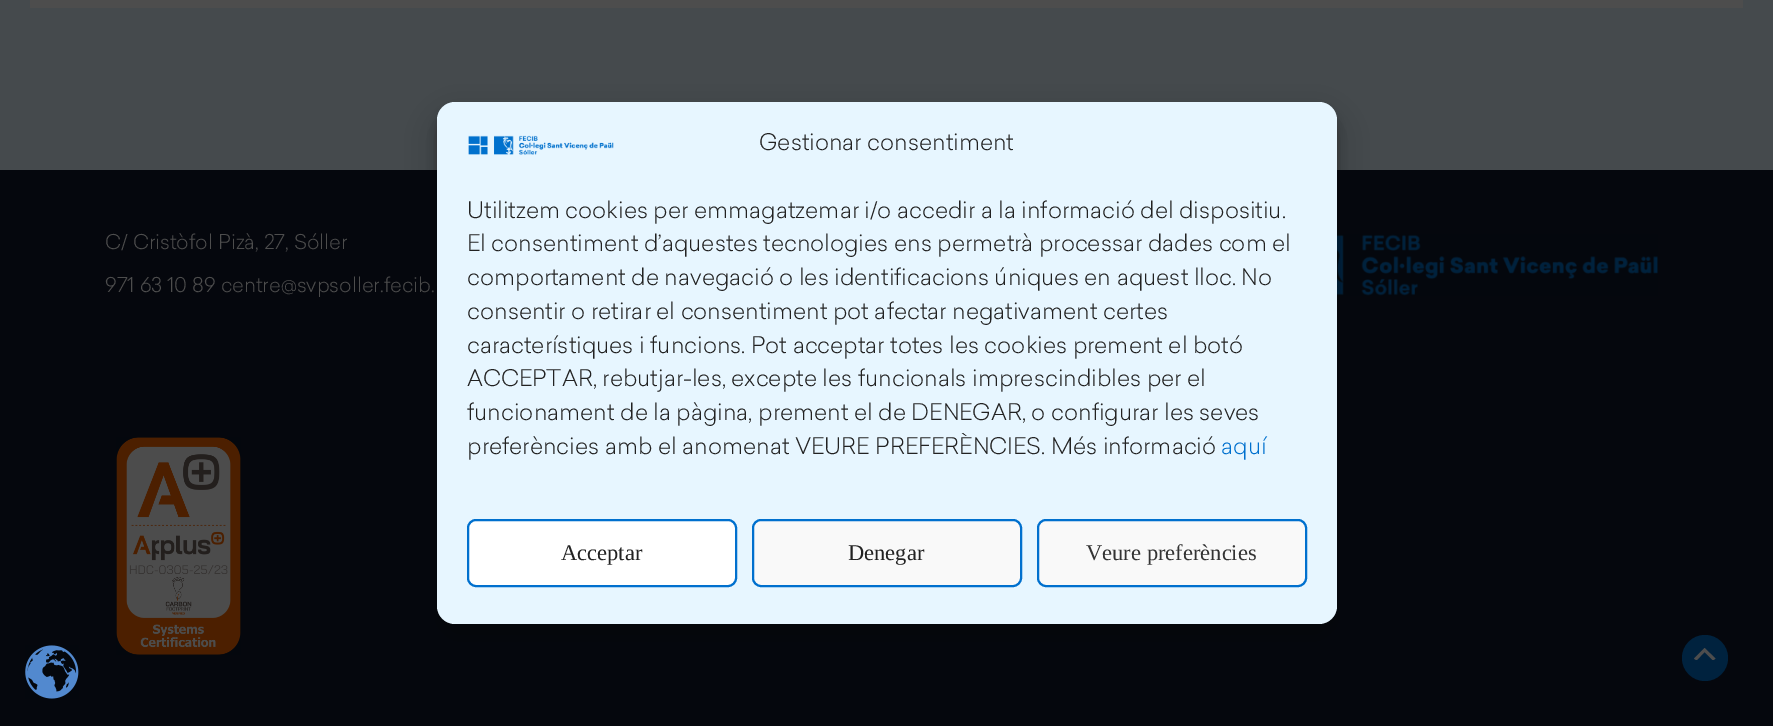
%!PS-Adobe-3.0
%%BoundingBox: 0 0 1773 726
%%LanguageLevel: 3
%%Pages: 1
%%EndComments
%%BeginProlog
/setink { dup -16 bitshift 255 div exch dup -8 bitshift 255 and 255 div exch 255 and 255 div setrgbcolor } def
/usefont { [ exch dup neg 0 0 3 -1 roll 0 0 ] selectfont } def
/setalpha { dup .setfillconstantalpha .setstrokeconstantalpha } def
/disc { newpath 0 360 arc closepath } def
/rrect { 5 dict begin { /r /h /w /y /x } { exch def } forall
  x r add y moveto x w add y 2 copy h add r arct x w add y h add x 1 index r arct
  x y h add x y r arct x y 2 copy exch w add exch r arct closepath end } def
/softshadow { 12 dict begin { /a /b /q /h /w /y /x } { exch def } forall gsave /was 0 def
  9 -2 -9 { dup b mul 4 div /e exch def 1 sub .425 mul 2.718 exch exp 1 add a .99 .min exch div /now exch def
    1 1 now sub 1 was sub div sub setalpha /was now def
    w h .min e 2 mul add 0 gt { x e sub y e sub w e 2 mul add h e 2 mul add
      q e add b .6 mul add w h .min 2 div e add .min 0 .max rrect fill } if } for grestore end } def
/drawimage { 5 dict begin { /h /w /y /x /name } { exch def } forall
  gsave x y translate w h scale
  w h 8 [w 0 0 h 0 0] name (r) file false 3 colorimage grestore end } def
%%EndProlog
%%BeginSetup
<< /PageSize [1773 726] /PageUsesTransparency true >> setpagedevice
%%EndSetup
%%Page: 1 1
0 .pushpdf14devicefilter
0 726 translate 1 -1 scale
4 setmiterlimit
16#454A4D setink
0 0 1773 726 rectfill
16#4D4D4D setink
30 0 1713 8 rectfill
16#05070D setink
0 170 1773 556 rectfill
/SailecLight-Light 20 usefont
16#4D4D4D setink
105 249 moveto (C/ Cristòfol Pizà, 27, Sóller) show
105 292 moveto (971 63 10 89 centre@svpsoller.fecib.) show
(img1.raw) 1337 234 321 62 drawimage
(img2.raw) 116 437 125 218 drawimage
16#000000 setink
437 111 900 522 18 4.5 0.23 softshadow
437 117 900 522 18 15 0.19 softshadow
16#E7F6FF setink
437 102 900 522 18 rrect fill
(img3.raw) 468 135 146 20 drawimage
/SailecLight-Light 22.5 usefont
16#222222 setink
[
    [(Gestionar consentiment) 759 150]
    [(Utilitzem cookies per emmagatzemar i/o accedir a la informació del dispositiu.) 467 218]
    [(El consentiment d’aquestes tecnologies ens permetrà processar dades com el) 467 251]
    [(comportament de navegació o les identificacions úniques en aquest lloc. No) 467 285]
    [(consentir o retirar el consentiment pot afectar negativament certes) 467 319]
    [(característiques i funcions. Pot acceptar totes les cookies prement el botó) 467 353]
    [(ACCEPTAR, rebutjar-les, excepte les funcionals imprescindibles per el) 467 386]
    [(funcionament de la pàgina, prement el de DENEGAR, o configurar les seves) 467 420]
    [(preferències amb el anomenat VEURE PREFERÈNCIES. Més informació) 467 454]
] { aload pop moveto show } forall
16#0070CE setink
1221 454 moveto (aquí) show
16#FFFFFF setink
468 520 268 66 8 rrect gsave fill grestore
16#0070CE setink
2 setlinewidth
stroke
/LiberationSerif-Regular 22.5 usefont
16#222222 setink
561 560 moveto (Acceptar) show
16#F9F9F9 setink
753 520 268 66 8 rrect gsave fill grestore
16#0070CE setink
stroke
16#222222 setink
848 560 moveto (Denegar) show
16#F9F9F9 setink
1038 520 268 66 8 rrect gsave fill grestore
16#0070CE setink
stroke
16#333333 setink
1086 560 moveto (Veure preferències) show
(img4.raw) 25 645 54 54 drawimage
16#00223E setink
1705 658 23 disc fill
gsave
1686 647 36 13 rectclip
16#4D4D4D setink
1715.5 658.5 moveto 1704.5 648 lineto 1694 658.5 lineto 1696.5 660.5 lineto 1704.5 652 lineto 1713 660.5 lineto closepath fill
grestore
.poppdf14devicefilter showpage
%%EOF
